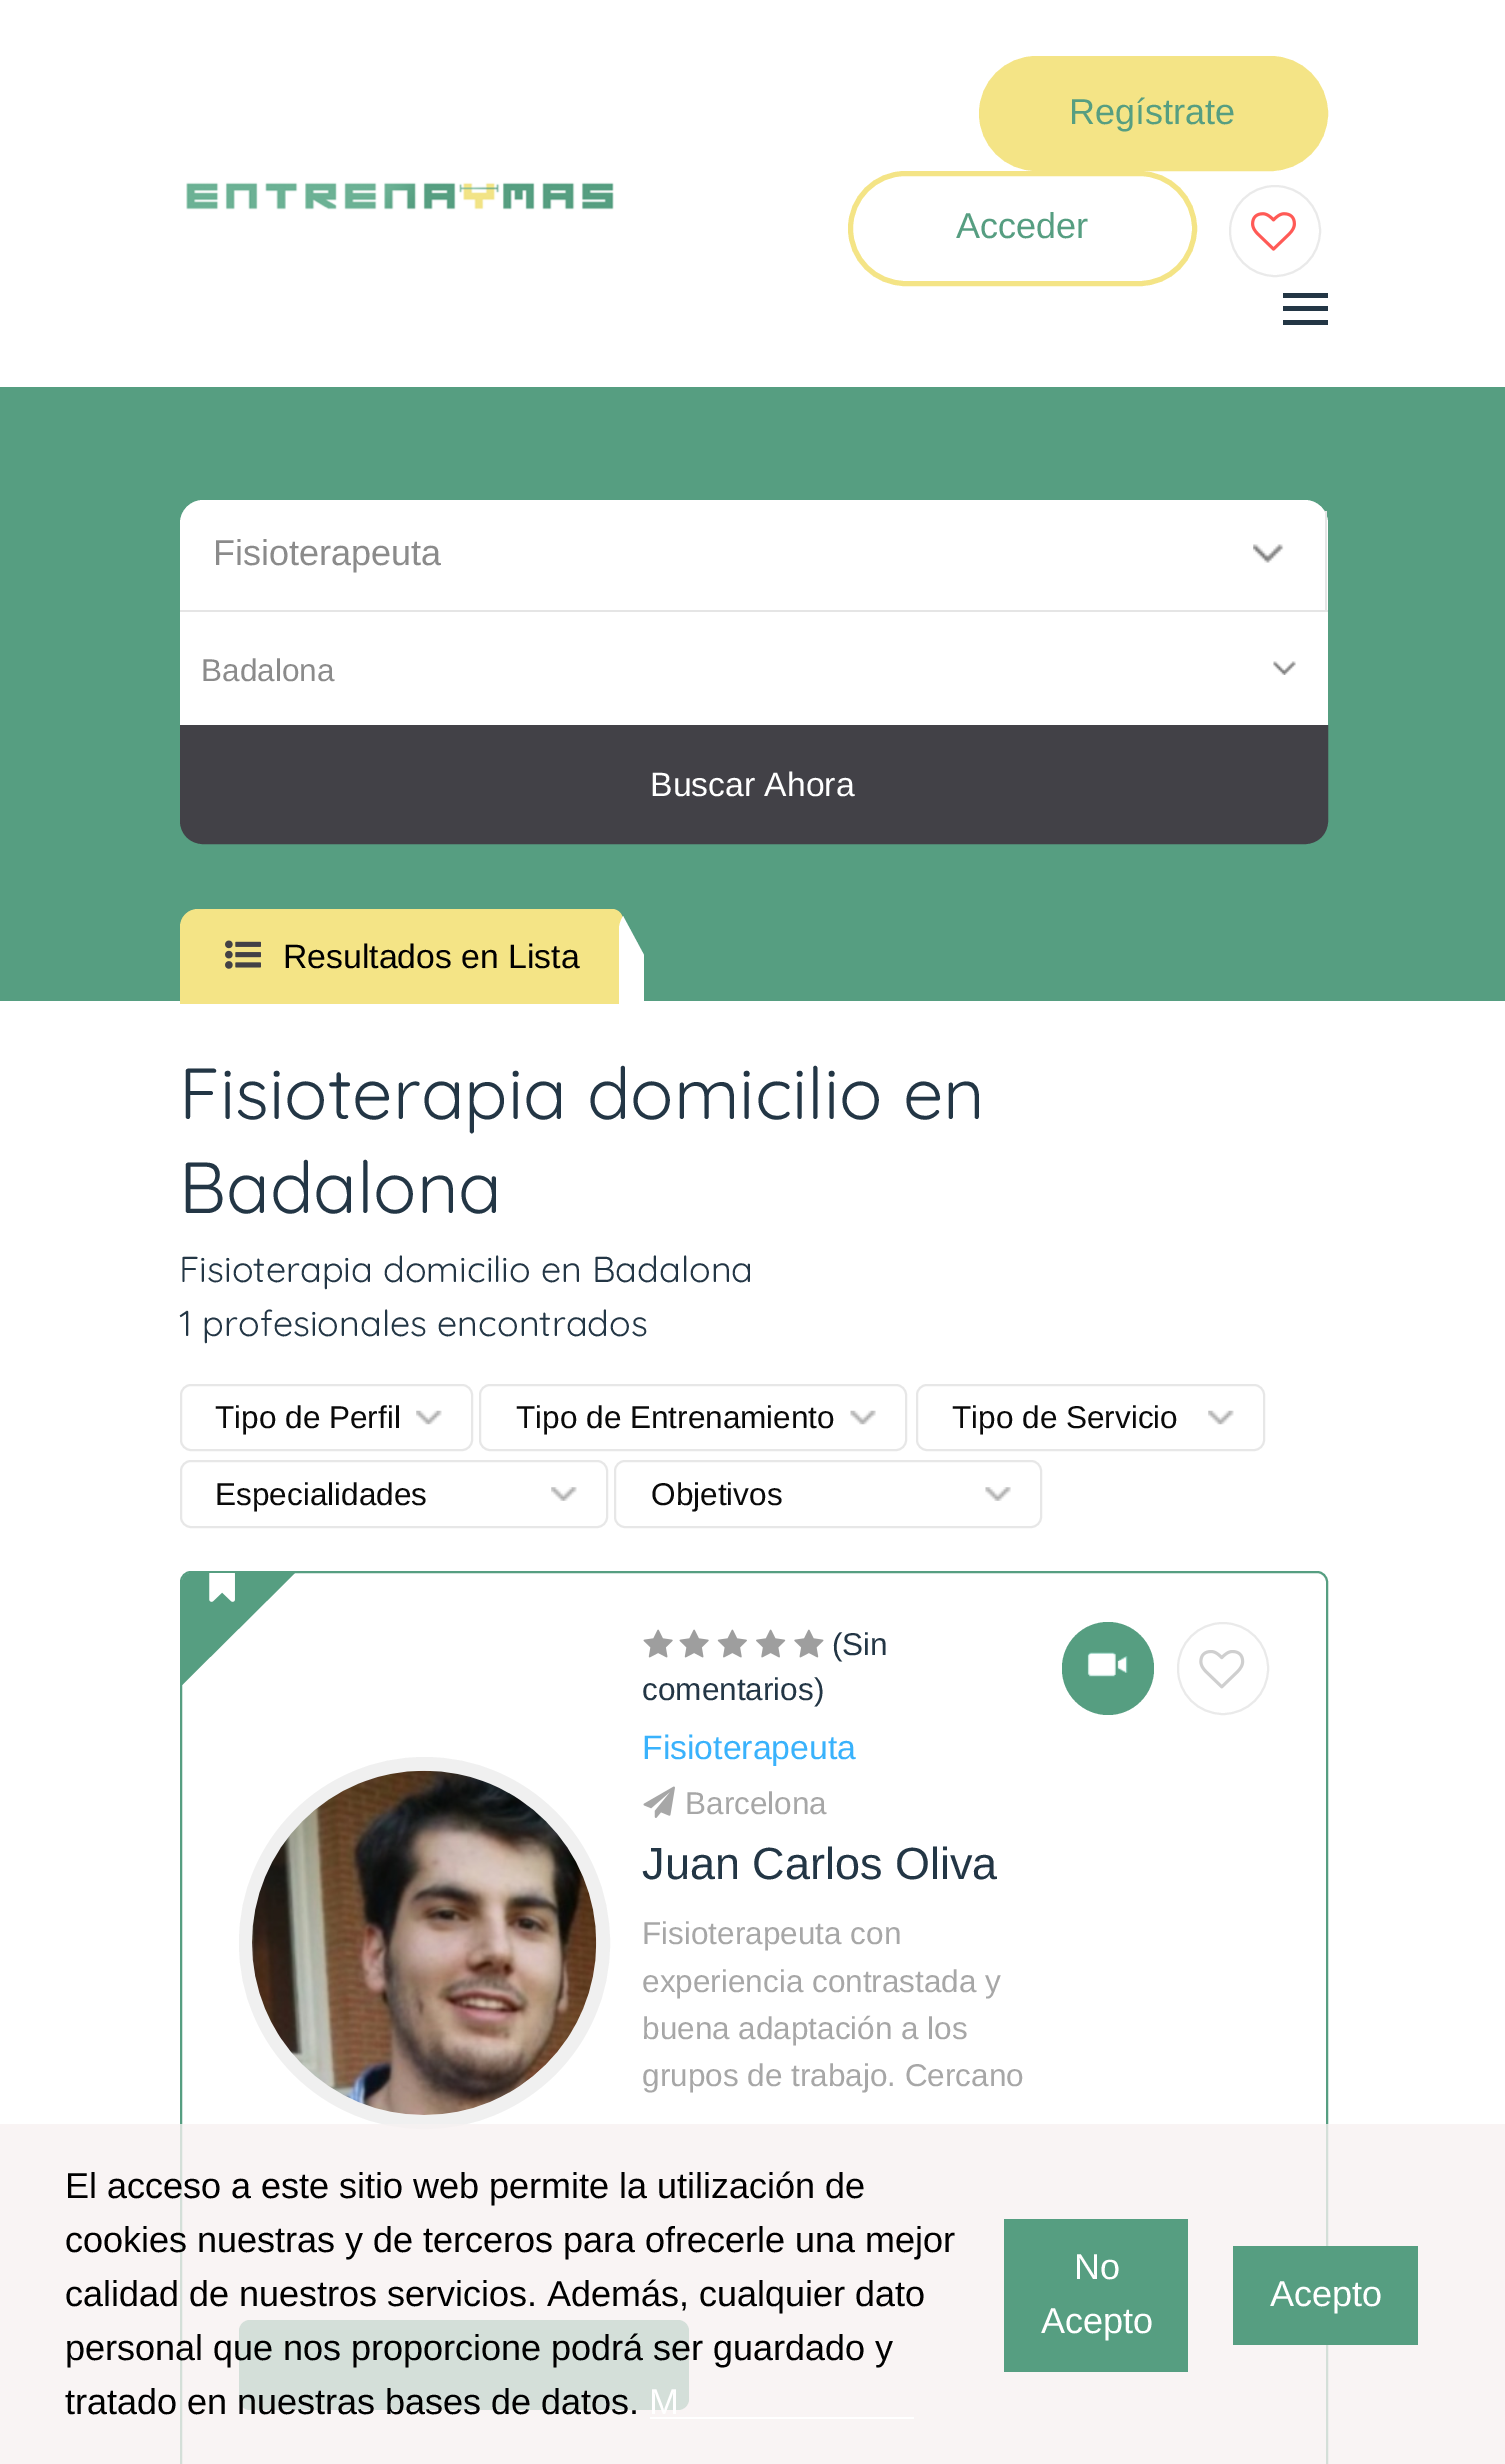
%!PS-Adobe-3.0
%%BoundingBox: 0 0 1505 2464
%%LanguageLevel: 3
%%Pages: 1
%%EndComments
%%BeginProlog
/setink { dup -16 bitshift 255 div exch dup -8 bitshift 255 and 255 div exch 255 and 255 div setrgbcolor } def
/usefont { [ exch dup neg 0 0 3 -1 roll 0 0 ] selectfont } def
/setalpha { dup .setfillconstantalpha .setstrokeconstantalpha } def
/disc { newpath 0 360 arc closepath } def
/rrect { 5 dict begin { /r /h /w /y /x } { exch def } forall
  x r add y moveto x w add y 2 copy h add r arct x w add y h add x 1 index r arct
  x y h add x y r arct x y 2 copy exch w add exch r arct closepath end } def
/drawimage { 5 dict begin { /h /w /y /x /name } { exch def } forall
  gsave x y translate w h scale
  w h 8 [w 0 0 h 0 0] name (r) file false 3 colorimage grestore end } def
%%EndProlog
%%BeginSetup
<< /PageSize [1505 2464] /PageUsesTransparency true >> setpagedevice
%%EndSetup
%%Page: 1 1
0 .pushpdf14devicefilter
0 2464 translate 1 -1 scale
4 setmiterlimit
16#FFFFFF setink
0 0 1505 2464 rectfill
(img1.raw) 186 182 428 28 drawimage
16#F4E486 setink
981.5 58.5 344 110 55 rrect gsave fill grestore
5 setlinewidth
stroke
/Arimo-Regular 36 usefont
16#569E81 setink
1069 124 moveto (Regístrate) show
16#F4E486 setink
850.5 173.5 344 110 55 rrect stroke
16#569E81 setink
956 238 moveto (Acceder) show
16#EAEAEA setink
2 setlinewidth
1275 231 45 disc stroke
(img2.raw) 1251 212 45 39 drawimage
[
    [1283 306 45 5 16#233645]
    [1283 293 45 5 16#233645]
    [1283 320 45 5 16#233645]
    [0 387 1505 614 16#569E81]
] { aload pop setink rectfill } forall
16#FFFFFF setink
203 500 moveto 1305 500 lineto 1317.5 500 1328 510.5 1328 523 curveto 1328 612 lineto 180 612 lineto 180 523 lineto 180 510.5 190.5 500 203 500 curveto closepath fill
(img3.raw) 1253 544 31 19 drawimage
16#E5E5E5 setink
1325 511 2 101 rectfill
180 610 1148 2 rectfill
16#8B8B8B setink
213 565 moveto (Fisioterapeuta) show
16#FFFFFF setink
180 612 1148 113 rectfill
(img4.raw) 1273 661 23 14 drawimage
/Arimo-Regular 31.5 usefont
16#8B8B8B setink
201 681 moveto (Badalona) show
16#424147 setink
182.5 727.5 moveto 1325.5 727.5 lineto 1325.5 821 lineto 1325.5 832.5 1316.5 841.5 1305 841.5 curveto 203 841.5 lineto 191.5 841.5 182.5 832.5 182.5 821 curveto closepath gsave fill grestore
5 setlinewidth
stroke
/Arimo-Regular 33.75 usefont
16#FFFFFF setink
650 796 moveto (Buscar Ahora) show
16#F4E486 setink
198 909 moveto 612 909 lineto 618 909 623 914 623 920 curveto 623 1004 lineto 180 1004 lineto 180 927 lineto 180 917 188 909 198 909 curveto closepath fill
(img5.raw) 225 940 36 29 drawimage
16#000000 setink
283 968 moveto (Resultados en Lista) show
16#FFFFFF setink
623 916 moveto 644 955 lineto 644 1004 lineto 619 1004 lineto 619 929 lineto 619 924 621 920 623 916 curveto closepath fill
/Quicksand-Regular 72 usefont
16#233645 setink
179 1119 moveto (Fisioterapia domicilio en) show
179 1213 moveto (Badalona) show
/Quicksand-Regular 36 usefont
179 1282 moveto (Fisioterapia domicilio en Badalona) show
179 1336 moveto (1 profesionales encontrados) show
16#E7E7E7 setink
2 setlinewidth
181 1385 291 65 10 rrect stroke
(img6.raw) 416 1410 26 15 drawimage
/Arimo-Regular 31.5 usefont
16#0A0A0A setink
215 1428 moveto (Tipo de Perfil) show
16#E7E7E7 setink
480 1385 426 65 10 rrect stroke
(img7.raw) 850 1410 26 15 drawimage
16#0A0A0A setink
516 1428 moveto (Tipo de Entrenamiento) show
16#E7E7E7 setink
917 1385 347 65 10 rrect stroke
(img8.raw) 1208 1410 26 15 drawimage
16#0A0A0A setink
952 1428 moveto (Tipo de Servicio) show
16#E7E7E7 setink
181 1461 426 66 10 rrect stroke
(img9.raw) 551 1487 26 14 drawimage
16#0A0A0A setink
215 1505 moveto (Especialidades) show
16#E7E7E7 setink
615 1461 426 66 10 rrect stroke
(img10.raw) 985 1487 26 14 drawimage
16#0A0A0A setink
651 1505 moveto (Objetivos) show
16#569E81 setink
181 1572 1146 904 10 rrect stroke
191 1573 moveto 186 1573 182 1577 182 1582 curveto 182 1685 lineto 295 1573 lineto closepath fill
(img11.raw) 209 1573 26 29 drawimage
16#F0F0F0 setink
14 setlinewidth
246 1764 357 358 178.5 rrect stroke
(img12.raw) 252 1770 345 345 drawimage
(img13.raw) 643 1629 30 29 drawimage
(img13.raw) 679 1629 30 29 drawimage
(img14.raw) 717 1629 30 29 drawimage
(img15.raw) 756 1629 30 29 drawimage
(img16.raw) 794 1629 30 29 drawimage
16#233645 setink
832 1655 moveto (\(Sin) show
642 1700 moveto (comentarios\)) show
/Arimo-Regular 33.75 usefont
16#39B2FC setink
642 1759 moveto (Fisioterapeuta) show
(img17.raw) 643 1786 32 32 drawimage
/Arimo-Regular 31.5 usefont
16#A7A7A7 setink
685 1814 moveto (Barcelona) show
/Arimo-Regular 45 usefont
16#233645 setink
642 1879 moveto (Juan Carlos Oliva) show
/Arimo-Regular 31.5 usefont
16#A7A7A7 setink
[
    [(Fisioterapeuta con) 642 1944]
    [(experiencia contrastada y) 642 1992]
    [(buena adaptación a los) 642 2039]
    [(grupos de trabajo. Cercano) 642 2086]
] { aload pop moveto show } forall
16#569E81 setink
1062 1622 92 93 46 rrect fill
(img18.raw) 1087 1652 41 25 drawimage
16#EAEAEA setink
2 setlinewidth
1178 1623 90 91 45 rrect stroke
(img19.raw) 1199 1650 46 39 drawimage
16#579F82 setink
239 2320 450 90 11 rrect fill
0.78 setalpha
16#F7F1F1 setink
0 2124 1505 340 rectfill
/LiberationSans-Regular 36 usefont
1 setalpha
16#000000 setink
[
    [(El acceso a este sitio web permite la utilización de) 65 2198]
    [(cookies nuestras y de terceros para ofrecerle una mejor) 65 2252]
    [(calidad de nuestros servicios. Además, cualquier dato) 65 2306]
    [(personal que nos proporcione podrá ser guardado y) 65 2360]
    [(tratado en nuestras bases de datos.) 65 2414]
] { aload pop moveto show } forall
16#FFFFFF setink
649 2414 moveto (M) show
650 2417 264 2 rectfill
16#569E81 setink
1004 2219 184 153 rectfill
16#FFFFFF setink
1074 2279 moveto (No) show
1041 2333 moveto (Acepto) show
16#569E81 setink
1233 2246 185 99 rectfill
16#FFFFFF setink
1270 2306 moveto (Acepto) show
.poppdf14devicefilter showpage
%%EOF
